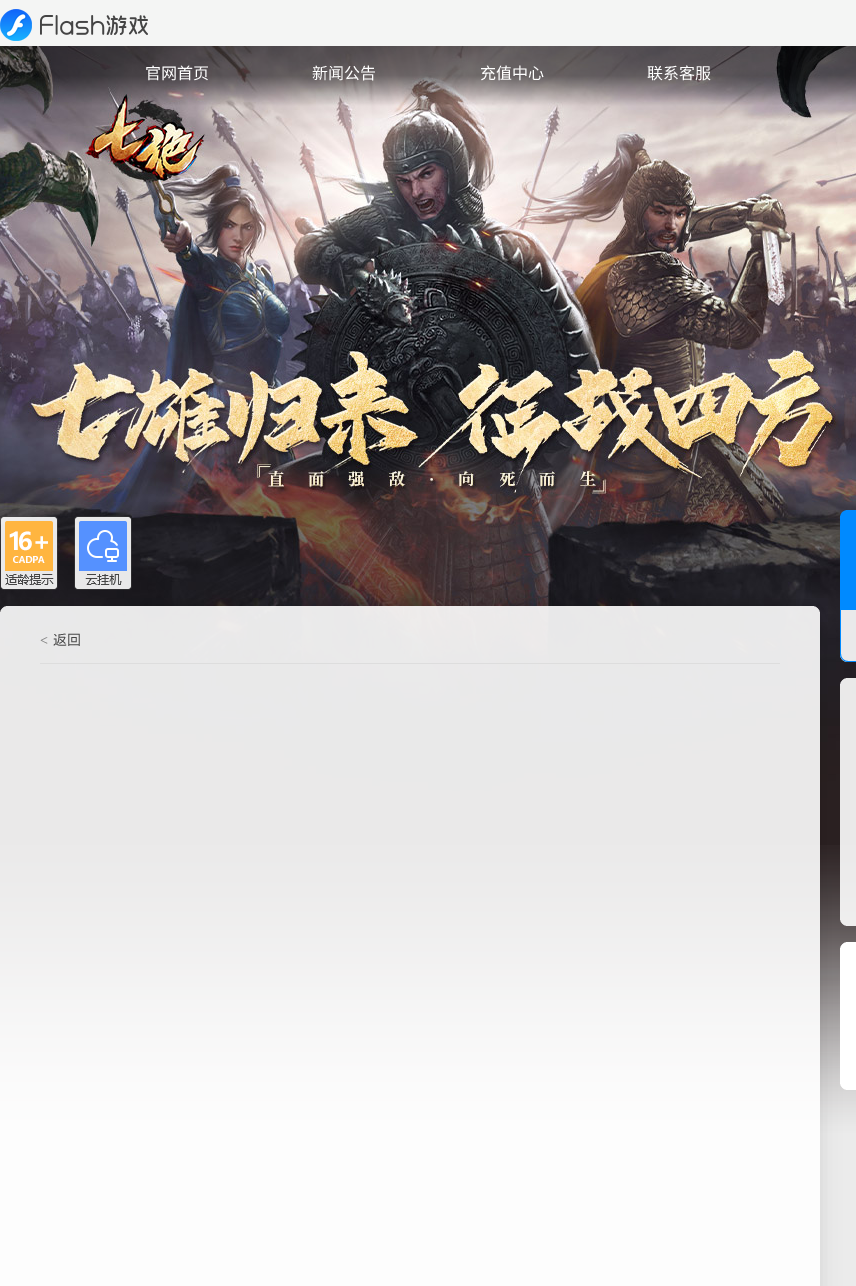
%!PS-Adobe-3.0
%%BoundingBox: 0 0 856 1286
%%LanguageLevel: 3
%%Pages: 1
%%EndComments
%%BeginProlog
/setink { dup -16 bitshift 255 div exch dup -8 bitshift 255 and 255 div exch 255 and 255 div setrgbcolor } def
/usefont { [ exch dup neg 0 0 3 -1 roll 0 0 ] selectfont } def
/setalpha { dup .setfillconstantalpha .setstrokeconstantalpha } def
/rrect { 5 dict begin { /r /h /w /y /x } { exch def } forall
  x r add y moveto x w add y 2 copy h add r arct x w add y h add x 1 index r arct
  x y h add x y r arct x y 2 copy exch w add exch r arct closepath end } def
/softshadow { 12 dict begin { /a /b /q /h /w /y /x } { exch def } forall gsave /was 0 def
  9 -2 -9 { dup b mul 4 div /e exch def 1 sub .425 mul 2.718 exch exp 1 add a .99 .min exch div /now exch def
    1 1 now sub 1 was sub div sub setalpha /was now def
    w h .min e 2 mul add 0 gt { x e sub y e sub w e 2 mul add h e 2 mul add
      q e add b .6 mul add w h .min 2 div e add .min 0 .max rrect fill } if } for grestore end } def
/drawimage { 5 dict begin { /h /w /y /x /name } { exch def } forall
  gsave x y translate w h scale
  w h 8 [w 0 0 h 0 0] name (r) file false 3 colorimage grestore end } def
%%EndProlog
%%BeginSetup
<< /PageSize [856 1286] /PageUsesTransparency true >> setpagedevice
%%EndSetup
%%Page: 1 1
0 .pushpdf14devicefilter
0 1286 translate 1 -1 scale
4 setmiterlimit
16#F4F5F4 setink
0 0 856 1286 rectfill
(img1.raw) 0 9 148 32 drawimage
(img2.raw) 0 46 856 1085 drawimage
/NotoSansCJKSC-Regular 16 usefont
16#FFFFFF setink
[
    [(官网首页) 145 79]
    [(新闻公告) 312 79]
    [(充值中心) 480 79]
    [(联系客服) 647 79]
] { aload pop moveto show } forall
(img5.raw) 0 845 856 441 drawimage
gsave
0 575 moveto 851 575 lineto 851 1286 lineto 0 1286 lineto closepath 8 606 moveto 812 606 lineto 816.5 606 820 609.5 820 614 curveto 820 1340 lineto 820 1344.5 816.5 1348 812 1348 curveto 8 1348 lineto 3.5 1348 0 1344.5 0 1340 curveto 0 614 lineto 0 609.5 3.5 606 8 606 curveto closepath eoclip newpath
16#000000 setink
0 606 820 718 8 10 0.1 softshadow
grestore
(img3.raw) 0 516 58 74 drawimage
(img4.raw) 74 516 58 74 drawimage
0.9 setalpha
0 606 820 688 8 rrect fill
1 setalpha
16#DDDDDD setink
40 663 740 1 rectfill
/LiberationSerif-Bold 14 usefont
16#888888 setink
40 645 moveto (<) show
/NotoSansCJKSC-Regular 14 usefont
16#444444 setink
53 645 moveto (返回) show
16#008AFF setink
848 510 moveto 856 510 lineto 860.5 510 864 513.5 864 518 curveto 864 610 lineto 840 610 lineto 840 518 lineto 840 513.5 843.5 510 848 510 curveto closepath fill
0.9 setalpha
16#FFFFFF setink
840 610 moveto 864 610 lineto 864 654 lineto 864 658.5 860.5 662 856 662 curveto 848 662 lineto 843.5 662 840 658.5 840 654 curveto closepath fill
1 setalpha
16#008AFF setink
840 610 moveto 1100 610 lineto 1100 654 lineto 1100 658 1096 662 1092 662 curveto 848 662 lineto 844 662 840 658 840 654 curveto closepath 841 610 moveto 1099 610 lineto 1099 654 lineto 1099 658 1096 661 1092 661 curveto 848 661 lineto 844 661 841 658 841 654 curveto closepath eofill
0.9 setalpha
16#FFFFFF setink
840 678 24 248 8 rrect fill
1 setalpha
840 942 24 148 8 rrect fill
.poppdf14devicefilter showpage
%%EOF
